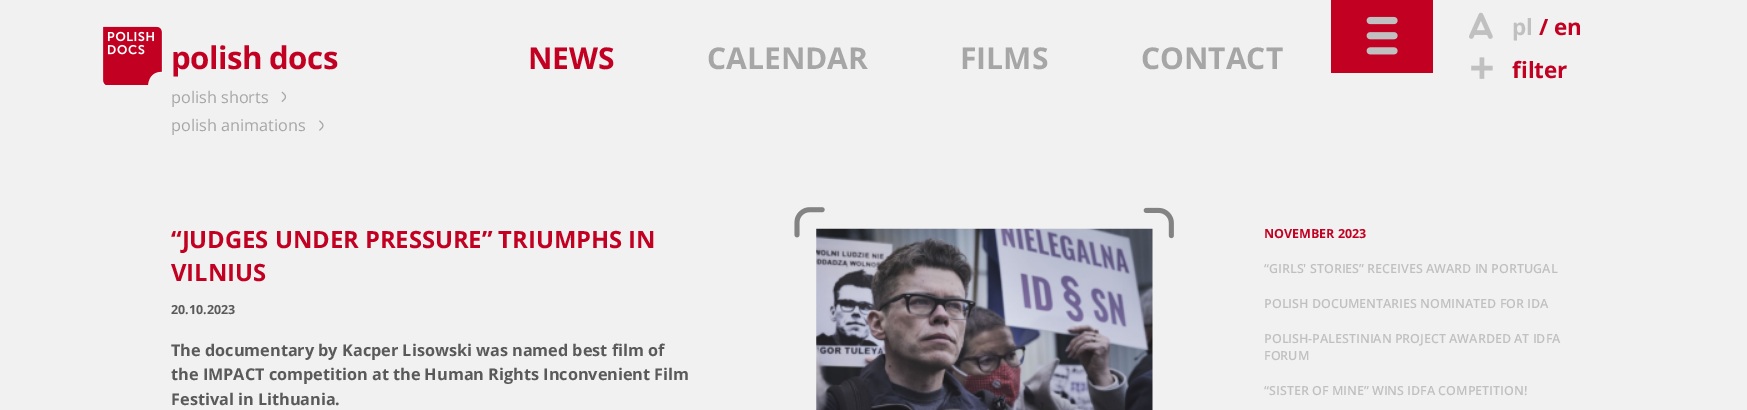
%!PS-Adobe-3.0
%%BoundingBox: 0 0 1747 410
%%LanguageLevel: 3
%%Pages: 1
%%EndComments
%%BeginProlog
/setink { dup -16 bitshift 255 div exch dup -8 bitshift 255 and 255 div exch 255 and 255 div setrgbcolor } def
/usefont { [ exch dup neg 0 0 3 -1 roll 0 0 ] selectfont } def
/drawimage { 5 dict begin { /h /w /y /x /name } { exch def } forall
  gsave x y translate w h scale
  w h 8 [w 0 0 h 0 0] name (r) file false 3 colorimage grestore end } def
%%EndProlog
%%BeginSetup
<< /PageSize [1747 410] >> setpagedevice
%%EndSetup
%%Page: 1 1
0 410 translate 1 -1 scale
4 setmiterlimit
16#F1F1F1 setink
0 0 1747 410 rectfill
(img1.raw) 103 26 60 59 drawimage
/OpenSans-Bold 31.25 usefont
16#C10022 setink
171 69 moveto -0.6 0 (polish docs) ashow
/OpenSans-Bold 30 usefont
528 69 moveto (NEWS) show
16#A6A6A6 setink
[
    [(CALENDAR) 707 69]
    [(FILMS) 960 69]
    [(CONTACT) 1141 69]
] { aload pop moveto show } forall
16#C10022 setink
1331 0 102 73 rectfill
(img2.raw) 1366 16 32 39 drawimage
(img3.raw) 1469 12 24 27 drawimage
/OpenSans-Bold 22.5 usefont
16#C1C0C1 setink
1512 35 moveto (pl) show
16#C10022 setink
1539 35 moveto (/ en) show
(img4.raw) 1471 57 22 22 drawimage
1512 78 moveto (filter) show
/OpenSans-Regular 16.25 usefont
16#A6A6A6 setink
171 103 moveto (polish shorts) show
(img5.raw) 281 91 5 11 drawimage
171 131 moveto (polish animations) show
(img6.raw) 319 120 5 11 drawimage
/OpenSans-Bold 23.75 usefont
16#C10022 setink
171 248 moveto (“JUDGES UNDER PRESSURE” TRIUMPHS IN) show
171 281 moveto (VILNIUS) show
/OpenSans-Bold 12.5 usefont
16#5A5A5A setink
171 314 moveto (20.10.2023) show
/OpenSans-Bold 16.25 usefont
[
    [(The documentary by Kacper Lisowski was named best film of) 171 356]
    [(the IMPACT competition at the Human Rights Inconvenient Film) 171 380]
    [(Festival in Lithuania.) 171 405]
] { aload pop moveto show } forall
(img9.raw) 816 228 337 182 drawimage
(img7.raw) 794 207 31 31 drawimage
(img8.raw) 1143 207 31 32 drawimage
/OpenSans-Bold 12.5 usefont
16#C10022 setink
1264 238 moveto (NOVEMBER 2023) show
/OpenSans-SemiBold 12.5 usefont
16#C1C0C1 setink
[
    [(“GIRLS' STORIES” RECEIVES AWARD IN PORTUGAL) 1264 273]
    [(POLISH DOCUMENTARIES NOMINATED FOR IDA) 1264 308]
    [(POLISH-PALESTINIAN PROJECT AWARDED AT IDFA) 1264 343]
    [(FORUM) 1264 360]
    [(“SISTER OF MINE” WINS IDFA COMPETITION!) 1264 395]
] { aload pop moveto show } forall
showpage
%%EOF
